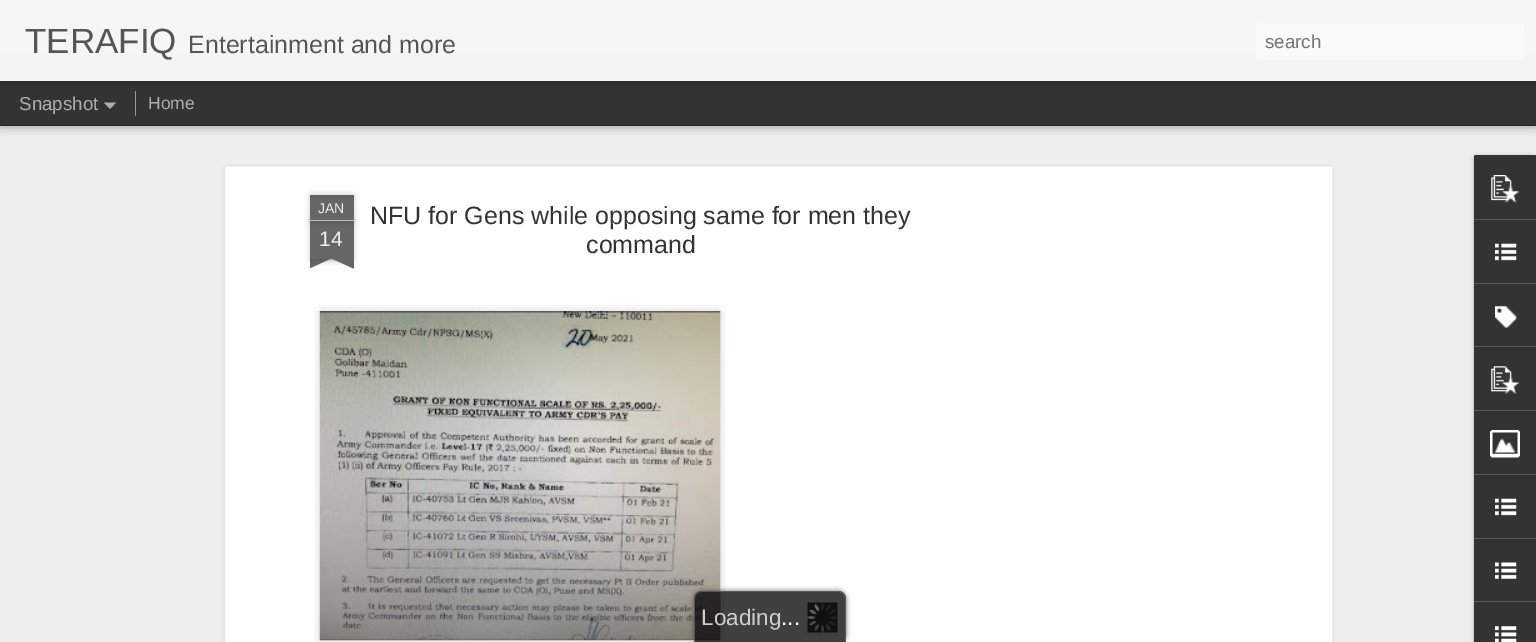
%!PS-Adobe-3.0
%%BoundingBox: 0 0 1536 642
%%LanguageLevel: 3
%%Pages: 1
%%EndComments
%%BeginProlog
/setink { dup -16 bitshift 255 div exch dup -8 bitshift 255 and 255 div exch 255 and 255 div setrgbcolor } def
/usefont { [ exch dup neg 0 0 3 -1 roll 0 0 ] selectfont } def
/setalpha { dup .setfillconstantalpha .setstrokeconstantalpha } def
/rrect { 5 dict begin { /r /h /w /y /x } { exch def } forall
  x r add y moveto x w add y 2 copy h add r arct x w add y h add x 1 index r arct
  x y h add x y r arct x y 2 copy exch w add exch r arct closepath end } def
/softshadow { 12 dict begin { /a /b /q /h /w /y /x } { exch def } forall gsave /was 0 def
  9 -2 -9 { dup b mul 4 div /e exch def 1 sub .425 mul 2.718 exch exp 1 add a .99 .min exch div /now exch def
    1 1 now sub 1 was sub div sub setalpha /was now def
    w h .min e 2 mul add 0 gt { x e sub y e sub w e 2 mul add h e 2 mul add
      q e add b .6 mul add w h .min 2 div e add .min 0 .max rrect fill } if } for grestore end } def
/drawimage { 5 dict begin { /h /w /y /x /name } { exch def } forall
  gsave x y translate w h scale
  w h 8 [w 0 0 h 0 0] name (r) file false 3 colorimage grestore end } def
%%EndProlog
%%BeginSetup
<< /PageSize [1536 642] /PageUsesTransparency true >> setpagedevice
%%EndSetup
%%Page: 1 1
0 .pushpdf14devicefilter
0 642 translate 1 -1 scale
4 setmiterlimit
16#333333 setink
0 0 1536 642 rectfill
16#EEEEEE setink
0 126 1536 516 rectfill
16#000000 setink
0 81 1536 44 0 5 0.5 softshadow
16#333333 setink
0 81 1536 44 rectfill
16#000000 setink
0 0 1536 81 0 3 0.3 softshadow
gsave 0 0 moveto 1536 0 lineto 1536 81 lineto 0 81 lineto closepath clip newpath
<< /ShadingType 2 /ColorSpace /DeviceRGB /Coords [0 0 0 81] /Extend [true true] /Function << /FunctionType 2 /Domain [0 1] /C0 [0.969 0.969 0.969] /C1 [0.957 0.957 0.957] /N 1 >> >> shfill grestore
/LiberationSans-Regular 35 usefont
16#555555 setink
25 53 moveto (TERAFIQ) show
/LiberationSans-Regular 25 usefont
188 53 moveto (Entertainment and more) show
16#FAFAFA setink
1256 23 268 37 4 rrect fill
/LiberationSans-Regular 18.75 usefont
16#757575 setink
1265 48 moveto (search) show
16#ADADAD setink
19 110 moveto (Snapshot) show
104 102.5 moveto 116 102.5 lineto 110 109 lineto closepath fill
16#999999 setink
135 91 1 25 rectfill
/LiberationSans-Regular 17.5 usefont
16#ADADAD setink
148 109 moveto (Home) show
16#FFFFFF setink
223 164 1112 478 rectfill
(img1.raw) 222 164 1113 478 drawimage
16#000000 setink
310 221 44 38 0 3 0.2 softshadow
16#666666 setink
310 221 44 38 rectfill
16#000000 setink
310 195 44 26 1 3 0.2 softshadow
16#666666 setink
311 195 moveto 353 195 lineto 353.5 195 354 195.5 354 196 curveto 354 221 lineto 310 221 lineto 310 196 lineto 310 195.5 310.5 195 311 195 curveto closepath fill
16#C2C2C2 setink
310 220 44 1 rectfill
/LiberationSans-Regular 14 usefont
16#EEEEEE setink
318 213 moveto (JAN) show
/LiberationSans-Regular 21 usefont
319 246 moveto (14) show
gsave
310 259 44 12 rectclip
16#000000 setink
299 246 62 13 0 3 0.2 softshadow
grestore
gsave
310 259 44 12 rectclip
16#666666 setink
298 260 moveto 355 234 lineto 360 245 lineto 304 271 lineto closepath fill
grestore
gsave
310 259 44 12 rectclip
16#000000 setink
303 246 62 13 0 3 0.2 softshadow
grestore
gsave
310 259 44 12 rectclip
16#666666 setink
307 234 moveto 364 260 lineto 359 271 lineto 302 245 lineto closepath fill
grestore
/LiberationSans-Regular 25 usefont
16#333333 setink
370 224 moveto (NFU for Gens while opposing same for men they) show
586 253 moveto (command) show
(img2.raw) 314 305 412 337 drawimage
(img3.raw) 319 311 402 330 drawimage
16#000000 setink
1474 156 62 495 2.5 2 0.3 softshadow
16#333333 setink
1476.5 155 moveto 1536 155 lineto 1536 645 lineto 1476.5 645 lineto 1475 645 1474 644 1474 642.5 curveto 1474 157.5 lineto 1474 156 1475 155 1476.5 155 curveto closepath fill
1476.5 155 moveto 1536 155 lineto 1536 219 lineto 1474 219 lineto 1474 157.5 lineto 1474 156 1475 155 1476.5 155 curveto closepath fill
(img4.raw) 1491 175 28 28 drawimage
16#585858 setink
1474 219 62 1 rectfill
(img5.raw) 1495 243 22 18 drawimage
1474 283 62 1 rectfill
(img6.raw) 1495 306 22 22 drawimage
1474 346 62 1 rectfill
(img7.raw) 1491 366 28 28 drawimage
1474 410 62 1 rectfill
(img8.raw) 1490 430 30 28 drawimage
1474 474 62 1 rectfill
(img5.raw) 1495 498 22 18 drawimage
1474 538 62 1 rectfill
(img9.raw) 1495 562 22 17 drawimage
1474 601 62 1 rectfill
(img10.raw) 1495 626 22 16 drawimage
gsave
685 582 moveto 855 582 lineto 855 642 lineto 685 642 lineto closepath 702 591 moveto 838 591 lineto 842.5 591 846 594.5 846 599 curveto 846 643 lineto 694 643 lineto 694 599 lineto 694 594.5 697.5 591 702 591 curveto closepath eoclip newpath
16#333333 setink
694 591 152 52 8 2.5 0.75 softshadow
grestore
0.75 setalpha
16#000000 setink
702 591 moveto 838 591 lineto 842.5 591 846 594.5 846 599 curveto 846 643 lineto 694 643 lineto 694 599 lineto 694 594.5 697.5 591 702 591 curveto closepath fill
16#666666 setink
701 591 moveto 839 591 lineto 843 591 846 595 846 599 curveto 846 642 lineto 694 642 lineto 694 599 lineto 694 595 697 591 701 591 curveto closepath 701 592 moveto 839 592 lineto 842 592 845 595 845 599 curveto 845 642 lineto 695 642 lineto 695 599 lineto 695 595 698 592 701 592 curveto closepath eofill
1 setalpha
(img11.raw) 807 602 31 31 drawimage
/LiberationSans-Regular 22.5 usefont
16#CECECE setink
701 625 moveto (Loading) show
16#FFFFFF setink
781 625 moveto (...) show
.poppdf14devicefilter showpage
%%EOF
